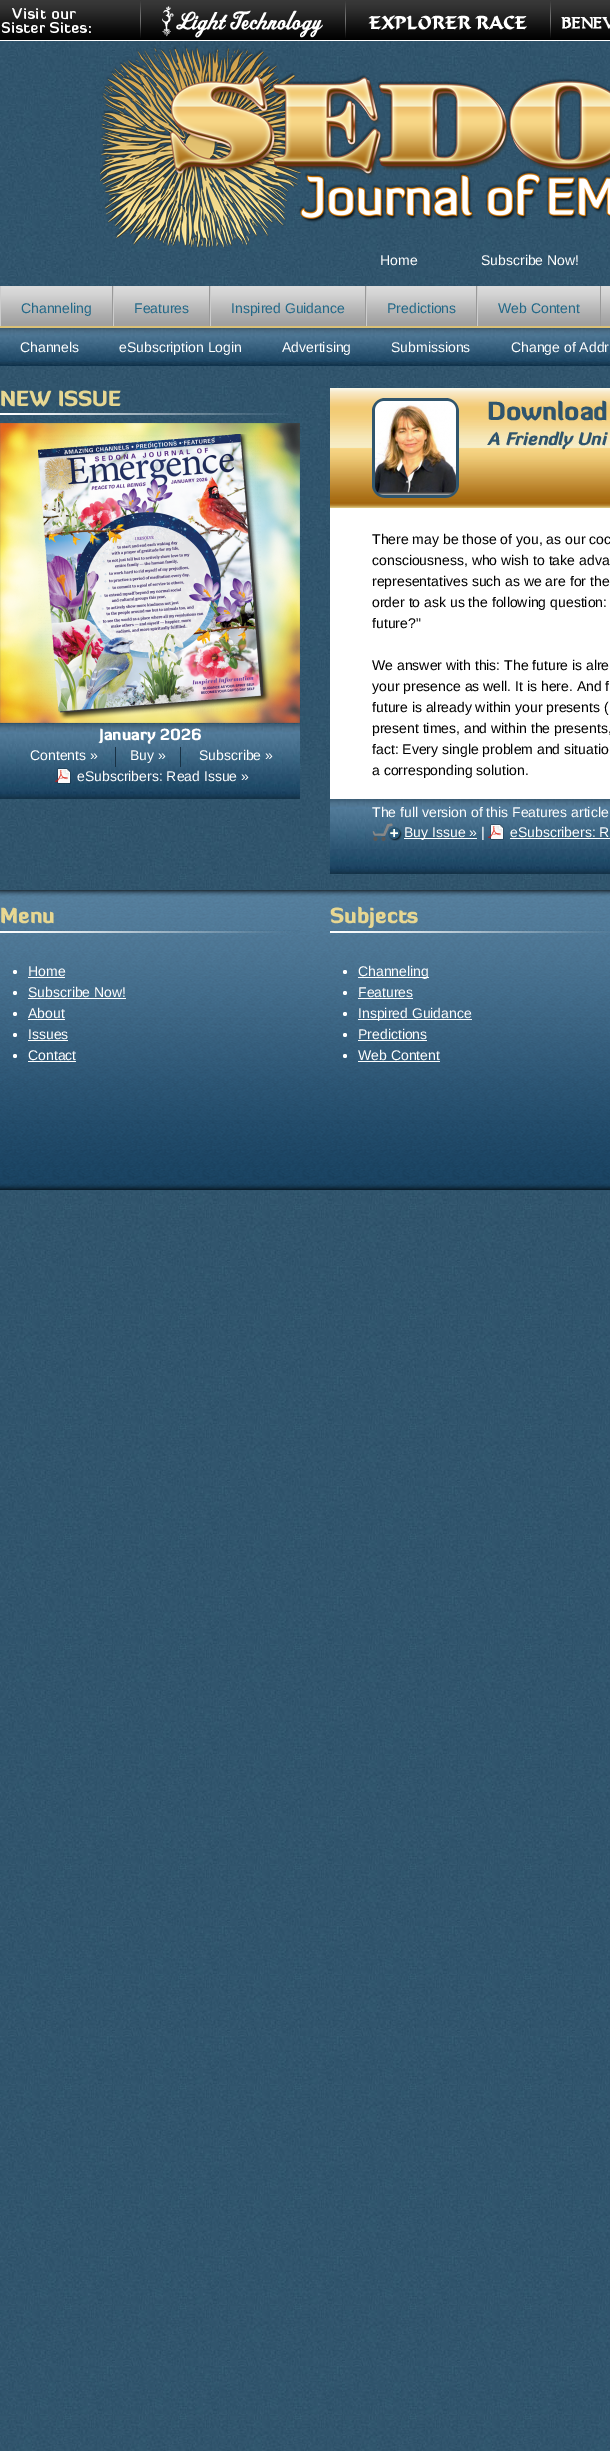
%!PS-Adobe-3.0
%%BoundingBox: 0 0 610 2451
%%LanguageLevel: 3
%%Pages: 1
%%EndComments
%%BeginProlog
/setink { dup -16 bitshift 255 div exch dup -8 bitshift 255 and 255 div exch 255 and 255 div setrgbcolor } def
/usefont { [ exch dup neg 0 0 3 -1 roll 0 0 ] selectfont } def
/disc { newpath 0 360 arc closepath } def
/drawimage { 5 dict begin { /h /w /y /x /name } { exch def } forall
  gsave x y translate w h scale
  w h 8 [w 0 0 h 0 0] name (r) file false 3 colorimage grestore end } def
%%EndProlog
%%BeginSetup
<< /PageSize [610 2451] >> setpagedevice
%%EndSetup
%%Page: 1 1
0 2451 translate 1 -1 scale
4 setmiterlimit
16#FFFFFF setink
0 0 610 2451 rectfill
(img1.raw) 0 41 610 2410 drawimage
(img2.raw) 0 0 610 40 drawimage
(img3.raw) 1 8 90 25 drawimage
(img4.raw) 140 1 1 37 drawimage
(img5.raw) 162 6 161 32 drawimage
(img4.raw) 345 1 1 37 drawimage
(img6.raw) 368 15 159 15 drawimage
(img4.raw) 550 1 1 37 drawimage
(img7.raw) 561 17 49 12 drawimage
(img8.raw) 100 46 510 202 drawimage
/LiberationSans-Regular 14 usefont
380 265 moveto (Home) show
481 265 moveto (Subscribe Now!) show
(img9.raw) 1 286 609 40 drawimage
[
    [0 326 610 2 16#D9C077]
    [112 286 1 40 16#999999]
    [0 286 1 40 16#CCCCCC]
] { aload pop setink rectfill } forall
16#226888 setink
21 313 moveto (Channeling) show
16#999999 setink
209 286 1 40 rectfill
16#CCCCCC setink
113 286 1 40 rectfill
16#226888 setink
134 313 moveto (Features) show
16#999999 setink
365 286 1 40 rectfill
16#CCCCCC setink
210 286 1 40 rectfill
16#226888 setink
231 313 moveto (Inspired Guidance) show
16#999999 setink
476 286 1 40 rectfill
16#CCCCCC setink
366 286 1 40 rectfill
16#226888 setink
387 313 moveto (Predictions) show
16#999999 setink
600 286 1 40 rectfill
16#CCCCCC setink
477 286 1 40 rectfill
16#226888 setink
498 313 moveto (Web Content) show
(img10.raw) 0 328 610 38 drawimage
16#FFFFFF setink
[
    [(Channels) 20 352]
    [(eSubscription Login) 119 352]
    [(Advertising) 282 352]
    [(Submissions) 391 352]
    [(Change of Addr) 511 352]
] { aload pop moveto show } forall
(img11.raw) 0 413 298 2 drawimage
/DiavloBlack-Black 21 usefont
16#E7D792 setink
0 406 moveto (NEW ISSUE) show
(img12.raw) 0 423 300 300 drawimage
(img13.raw) 0 724 300 75 drawimage
/DiavloBlack-Black 15.5 usefont
16#FFFFFF setink
99 740 moveto (January 2026) show
/LiberationSans-Regular 14 usefont
30 760 moveto (Contents ») show
130 760 moveto (Buy ») show
16#183144 setink
180 747 1 20 rectfill
115 747 1 20 rectfill
16#FFFFFF setink
199 760 moveto (Subscribe ») show
(img14.raw) 55 768 16 16 drawimage
77 781 moveto (eSubscribers: Read Issue ») show
330 508 280 291 rectfill
(img15.raw) 330 799 280 75 drawimage
(img16.raw) 330 388 280 120 drawimage
(img17.raw) 372 398 87 100 drawimage
/DiavloBlack-Black 25 usefont
16#30556D setink
487 420 moveto (Download) show
/DiavloBlack-BlackItalic 17.5 usefont
487 445 moveto (A Friendly Uni) show
/LiberationSans-Regular 14 usefont
16#000000 setink
[
    [(There may be those of you, as our coc) 372 544]
    [(consciousness, who wish to take adva) 372 565]
    [(representatives such as we are for the) 372 586]
    [(order to ask us the following question:) 372 607]
    [(future?") 372 628]
    [(We answer with this: The future is alre) 372 670]
    [(your presence as well. It is here. And f) 372 691]
    [(future is already within your presents \() 372 712]
    [(present times, and within the presents,) 372 733]
    [(fact: Every single problem and situatio) 372 754]
    [(a corresponding solution.) 372 775]
] { aload pop moveto show } forall
16#FFFFFF setink
372 817 moveto (The full version of this Features article) show
(img18.raw) 372 823 30 18 drawimage
404 838 73 1 rectfill
404 837 moveto (Buy Issue » |) show
(img19.raw) 488 824 16 16 drawimage
510 837 moveto (eSubscribers: R) show
510 838 100 1 rectfill
(img20.raw) 0 890 610 300 drawimage
(img21.raw) 0 930 300 3 drawimage
/DiavloBlack-Black 21 usefont
16#E7D792 setink
0 923 moveto (Menu) show
16#FFFFFF setink
15 972 2 disc fill
/LiberationSans-Regular 14 usefont
28 976 moveto (Home) show
28 977 37 1 rectfill
15 993 2 disc fill
28 997 moveto (Subscribe Now!) show
28 998 98 1 rectfill
15 1014 2 disc fill
28 1018 moveto (About) show
28 1019 37 1 rectfill
15 1035 2 disc fill
28 1039 moveto (Issues) show
28 1040 40 1 rectfill
15 1056 2 disc fill
28 1060 moveto (Contact) show
28 1061 48 1 rectfill
(img22.raw) 330 930 280 3 drawimage
/DiavloBlack-Black 21 usefont
16#E7D792 setink
330 923 moveto (Subjects) show
16#FFFFFF setink
345 972 2 disc fill
358 977 71 1 rectfill
/LiberationSans-Regular 14 usefont
358 976 moveto (Channeling) show
345 993 2 disc fill
358 997 moveto (Features) show
358 998 55 1 rectfill
345 1014 2 disc fill
358 1019 114 1 rectfill
358 1018 moveto (Inspired Guidance) show
345 1035 2 disc fill
358 1039 moveto (Predictions) show
358 1040 69 1 rectfill
345 1056 2 disc fill
358 1060 moveto (Web Content) show
358 1061 82 1 rectfill
showpage
%%EOF
